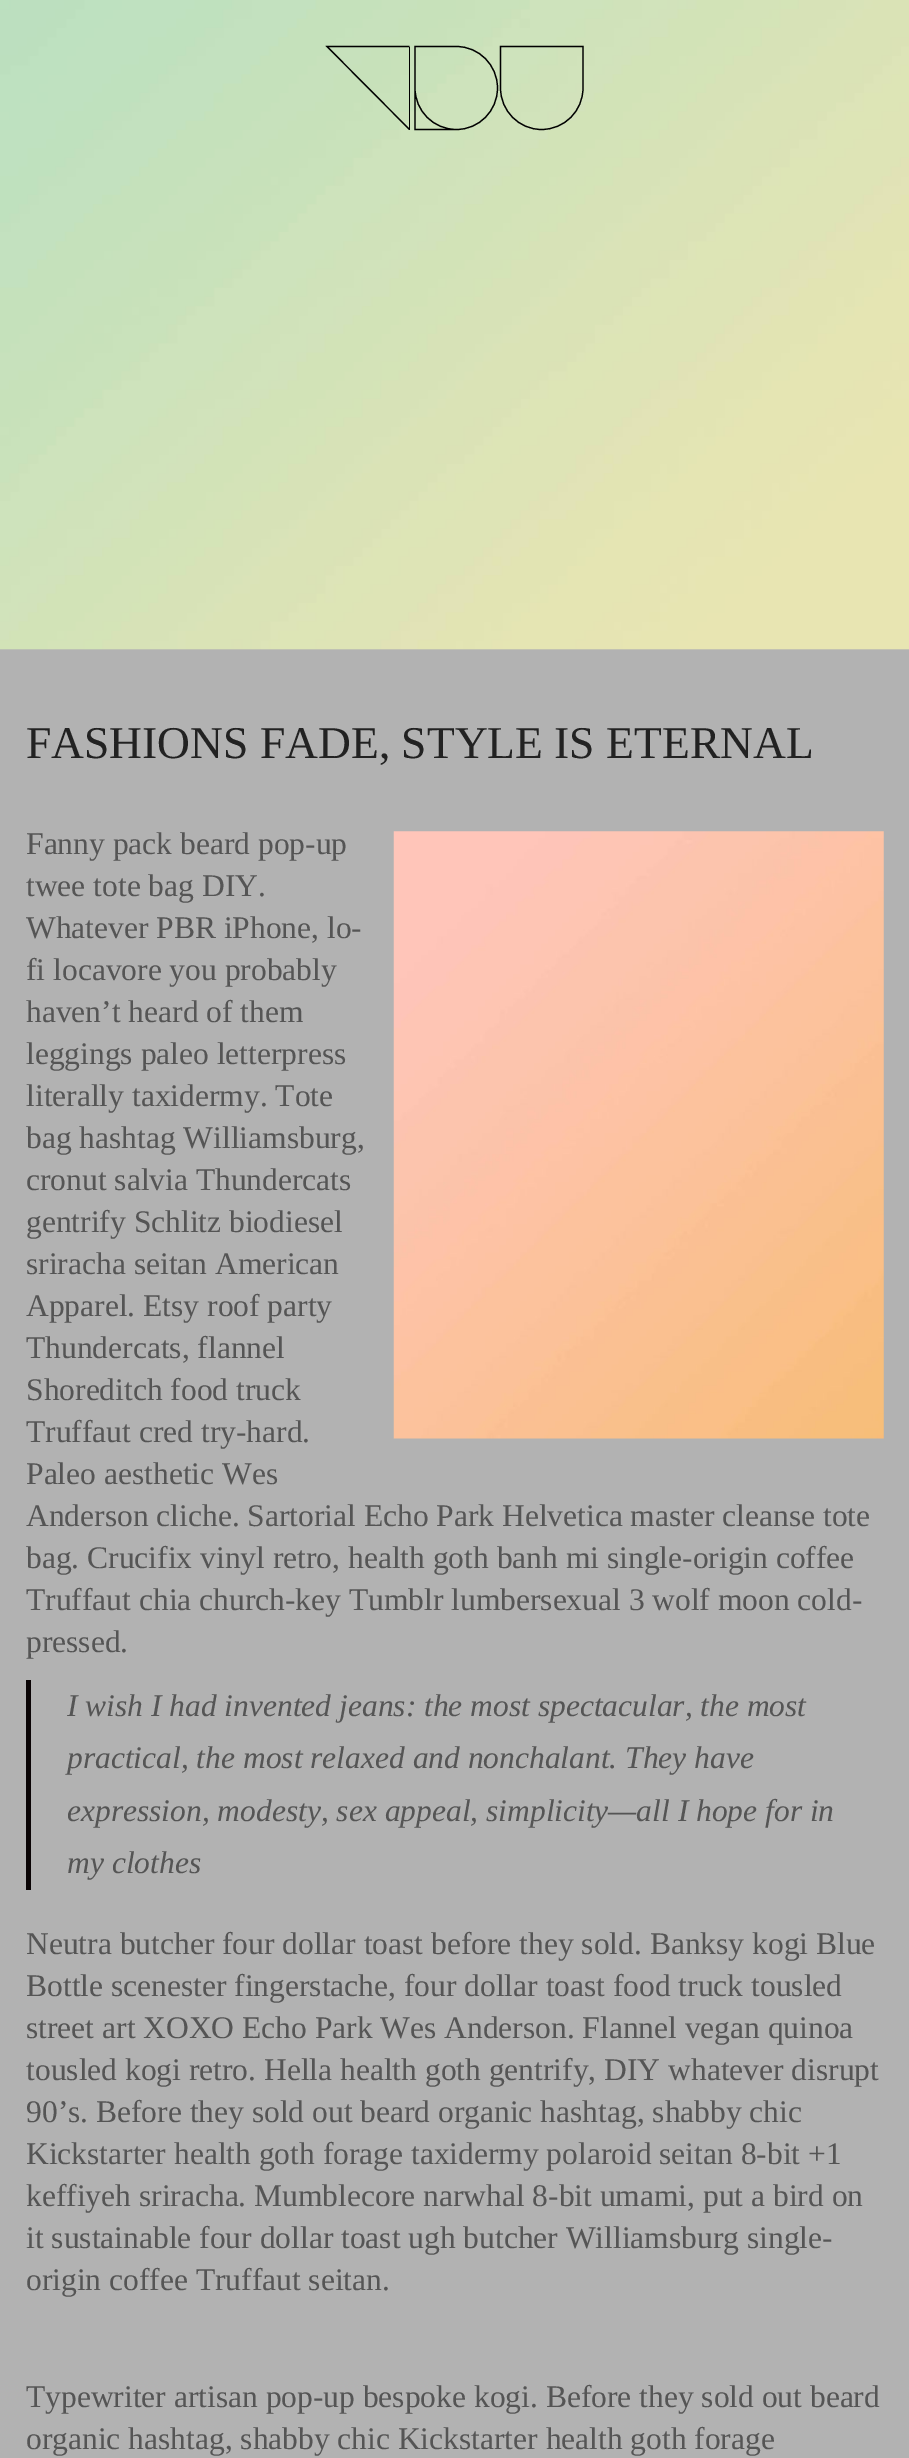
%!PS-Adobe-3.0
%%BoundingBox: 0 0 909 2458
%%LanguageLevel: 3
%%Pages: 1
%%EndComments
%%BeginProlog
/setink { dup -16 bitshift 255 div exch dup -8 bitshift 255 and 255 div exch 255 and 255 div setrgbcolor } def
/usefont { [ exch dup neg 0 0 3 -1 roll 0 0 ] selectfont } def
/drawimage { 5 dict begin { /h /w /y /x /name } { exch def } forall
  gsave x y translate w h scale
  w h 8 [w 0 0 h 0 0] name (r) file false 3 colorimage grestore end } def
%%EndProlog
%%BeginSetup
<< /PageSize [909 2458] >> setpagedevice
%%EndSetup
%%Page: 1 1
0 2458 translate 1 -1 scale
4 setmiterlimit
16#B2B2B2 setink
0 0 909 2458 rectfill
(img1.raw) 0 0 909 650 drawimage
16#000000 setink
409 47 1 83 rectfill
1.2 setlinewidth
409.5 129.5 moveto 327 46.5 lineto 409.5 46.5 lineto stroke
415 88 moveto 415 111 433.5 129.5 456.5 129.5 curveto 479 129.5 497.5 111 497.5 88 curveto 497.5 65 479 46.5 456.5 46.5 curveto 415 46.5 lineto 415 129.5 lineto 456.5 129.5 lineto stroke
500.5 88 moveto 500.5 46.5 lineto 583 46.5 lineto 583 88 lineto 583 111 564.5 129.5 541.5 129.5 curveto 519 129.5 500.5 111 500.5 88 curveto closepath stroke
/LiberationSerif-Regular 45.5 usefont
16#222222 setink
26 758 moveto (FASHIONS FADE, STYLE IS ETERNAL) show
/LiberationSerif-Regular 31.5 usefont
16#555555 setink
26 854 moveto (Fanny pack beard pop-up) show
(img2.raw) 393 831 491 608 drawimage
[
    [(twee tote bag DIY.) 26 896]
    [(Whatever PBR iPhone, lo-) 26 938]
    [(fi locavore you probably) 26 980]
    [(haven’t heard of them) 26 1022]
    [(leggings paleo letterpress) 26 1064]
    [(literally taxidermy. Tote) 26 1106]
    [(bag hashtag Williamsburg,) 26 1148]
    [(cronut salvia Thundercats) 26 1190]
    [(gentrify Schlitz biodiesel) 26 1232]
    [(sriracha seitan American) 26 1274]
    [(Apparel. Etsy roof party) 26 1316]
    [(Thundercats, flannel) 26 1358]
    [(Shoreditch food truck) 26 1400]
    [(Truffaut cred try-hard.) 26 1442]
    [(Paleo aesthetic Wes) 26 1484]
    [(Anderson cliche. Sartorial Echo Park Helvetica master cleanse tote) 26 1526]
    [(bag. Crucifix vinyl retro, health goth banh mi single-origin coffee) 26 1568]
    [(Truffaut chia church-key Tumblr lumbersexual 3 wolf moon cold-) 26 1610]
    [(pressed.) 26 1652]
] { aload pop moveto show } forall
16#0A0405 setink
26 1680 5 210 rectfill
/LiberationSerif-Italic 31.5 usefont
16#555555 setink
[
    [(I wish I had invented jeans: the most spectacular, the most) 67 1716]
    [(practical, the most relaxed and nonchalant. They have) 67 1768]
    [(expression, modesty, sex appeal, simplicity—all I hope for in) 67 1821]
    [(my clothes) 67 1873]
] { aload pop moveto show } forall
/LiberationSerif-Regular 31.5 usefont
[
    [(Neutra butcher four dollar toast before they sold. Banksy kogi Blue) 26 1954]
    [(Bottle scenester fingerstache, four dollar toast food truck tousled) 26 1996]
    [(street art XOXO Echo Park Wes Anderson. Flannel vegan quinoa) 26 2038]
    [(tousled kogi retro. Hella health goth gentrify, DIY whatever disrupt) 26 2080]
    [(90’s. Before they sold out beard organic hashtag, shabby chic) 26 2122]
    [(Kickstarter health goth forage taxidermy polaroid seitan 8-bit +1) 26 2164]
    [(keffiyeh sriracha. Mumblecore narwhal 8-bit umami, put a bird on) 26 2206]
    [(it sustainable four dollar toast ugh butcher Williamsburg single-) 26 2248]
    [(origin coffee Truffaut seitan.) 26 2290]
    [(Typewriter artisan pop-up bespoke kogi. Before they sold out beard) 26 2407]
    [(organic hashtag, shabby chic Kickstarter health goth forage) 26 2449]
] { aload pop moveto show } forall
showpage
%%EOF
